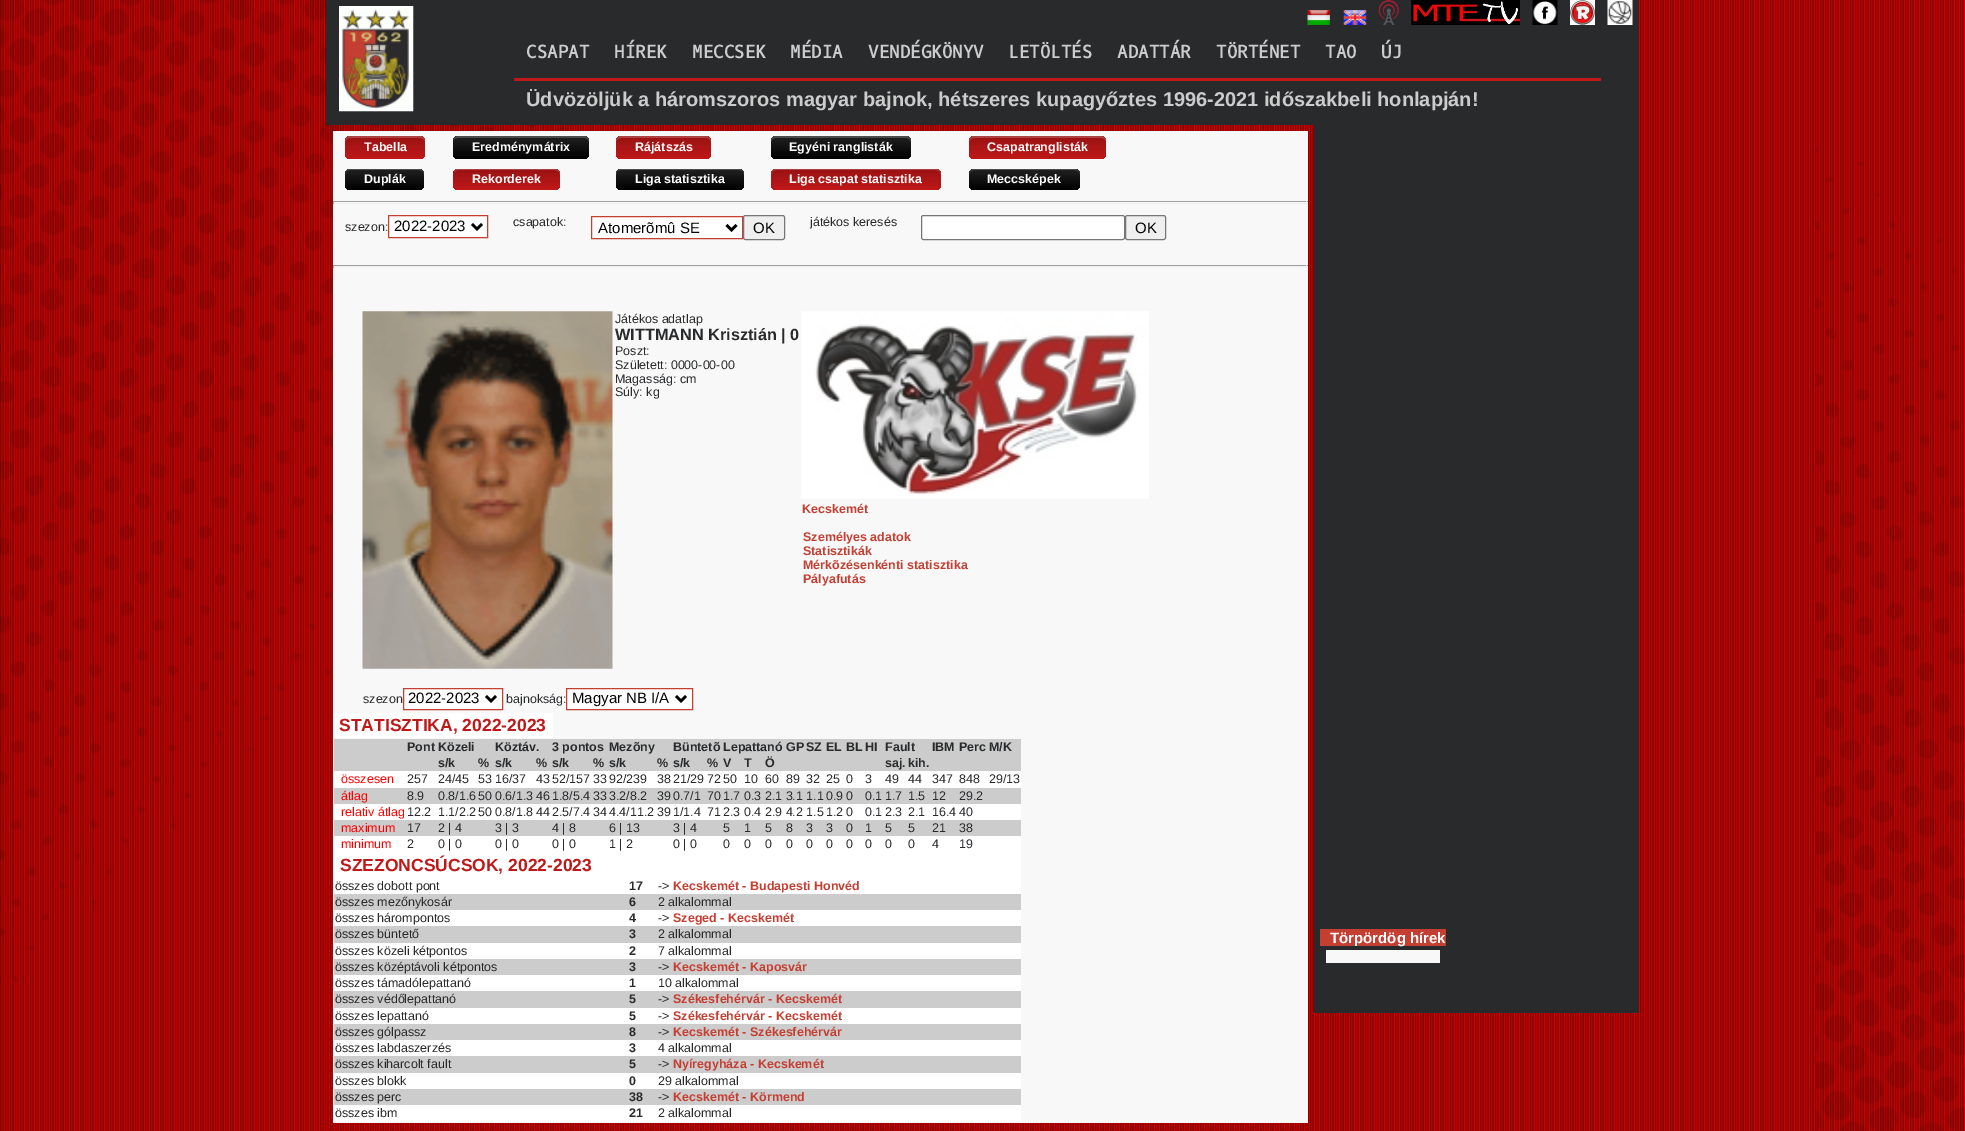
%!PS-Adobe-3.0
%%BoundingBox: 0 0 1965 1131
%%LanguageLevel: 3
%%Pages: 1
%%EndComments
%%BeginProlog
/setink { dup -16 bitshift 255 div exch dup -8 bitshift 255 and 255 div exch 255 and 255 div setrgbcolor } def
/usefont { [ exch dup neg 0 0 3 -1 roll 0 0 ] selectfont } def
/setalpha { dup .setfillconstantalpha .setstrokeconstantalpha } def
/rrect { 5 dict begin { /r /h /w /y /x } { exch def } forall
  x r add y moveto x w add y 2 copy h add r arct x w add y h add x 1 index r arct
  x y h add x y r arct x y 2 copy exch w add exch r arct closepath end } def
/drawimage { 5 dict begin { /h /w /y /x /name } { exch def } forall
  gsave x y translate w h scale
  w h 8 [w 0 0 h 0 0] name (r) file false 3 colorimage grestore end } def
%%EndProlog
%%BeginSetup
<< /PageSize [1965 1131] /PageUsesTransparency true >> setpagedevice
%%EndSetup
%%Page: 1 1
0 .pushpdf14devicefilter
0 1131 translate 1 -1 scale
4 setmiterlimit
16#FFFFFF setink
0 0 1965 1131 rectfill
(img1.raw) 0 0 1965 1131 drawimage
16#292A2C setink
326 0 1313 125 rectfill
16#FFFFFF setink
3 setlinewidth
340.5 7.5 71 102 rectstroke
(img2.raw) 342 9 68 100 drawimage
(img3.raw) 1307 10 23 15 drawimage
(img4.raw) 1343 10 24 15 drawimage
(img5.raw) 1378 0 21 25 drawimage
(img6.raw) 1411 0 109 25 drawimage
(img7.raw) 1532 0 26 25 drawimage
(img8.raw) 1570 0 25 25 drawimage
(img9.raw) 1607 0 26 25 drawimage
16#C01818 setink
514 78 1087 3 rectfill
/OxygenMono-Bold 17.5 usefont
16#CCCCCC setink
[
    [(CSAPAT) 526 58]
    [(HÍREK) 614 58]
    [(MECCSEK) 692 58]
    [(MÉDIA) 790 58]
    [(VENDÉGKÖNYV) 868 58]
    [(LETÖLTÉS) 1008 58]
    [(ADATTÁR) 1117 58]
    [(TÖRTÉNET) 1216 58]
    [(TAO) 1325 58]
    [(ÚJ) 1381 58]
] { aload pop moveto show } forall
/LiberationSans-Bold 20 usefont
526 106 moveto (Üdvözöljük a háromszoros magyar bajnok, hétszeres kupagyőztes 1996-2021 időszakbeli honlapján!) show
16#F8F8F8 setink
333 131 975 992 rectfill
gsave 345 136 80 23 5 rrect clip newpath
<< /ShadingType 2 /ColorSpace /DeviceRGB /Coords [385 136 385 159] /Extend [true true] /Function << /FunctionType 2 /Domain [0 1] /C0 [0.6 0.075 0.078] /C1 [0.753 0.094 0.094] /N 1 >> >> shfill grestore
0.2 setalpha
16#FFFFFF setink
350 138 moveto 420 138 lineto 423 138 425 140 425 142 curveto 425 133 414 136 408 136 curveto 362 136 lineto 356 136 345 133 345 142 curveto 345 140 347 138 350 138 curveto closepath fill
/LiberationSans-Bold 12.5 usefont
1 setalpha
364 151 moveto (Tabella) show
gsave 453 136 136 23 5 rrect clip newpath
<< /ShadingType 2 /ColorSpace /DeviceRGB /Coords [521 136 521 159] /Extend [true true] /Function << /FunctionType 2 /Domain [0 1] /C0 [0.133 0.133 0.133] /C1 [0 0 0] /N 1 >> >> shfill grestore
0.2 setalpha
458 138 moveto 584 138 lineto 587 138 589 140 589 142 curveto 589 141 lineto 589 138 587 136 584 136 curveto 458 136 lineto 456 136 454 138 453 140 curveto 454 139 456 138 458 138 curveto closepath fill
1 setalpha
472 151 moveto (Eredménymátrix) show
gsave 616 136 95 23 5 rrect clip newpath
<< /ShadingType 2 /ColorSpace /DeviceRGB /Coords [664 136 664 159] /Extend [true true] /Function << /FunctionType 2 /Domain [0 1] /C0 [0.6 0.075 0.078] /C1 [0.753 0.094 0.094] /N 1 >> >> shfill grestore
0.2 setalpha
621 138 moveto 706 138 lineto 709 138 711 140 711 142 curveto 711 132 697 136 692 136 curveto 635 136 lineto 630 136 616 132 616 142 curveto 616 140 618 138 621 138 curveto closepath fill
1 setalpha
635 151 moveto (Rájátszás) show
gsave 771 136 140 23 5 rrect clip newpath
<< /ShadingType 2 /ColorSpace /DeviceRGB /Coords [841 136 841 159] /Extend [true true] /Function << /FunctionType 2 /Domain [0 1] /C0 [0.133 0.133 0.133] /C1 [0 0 0] /N 1 >> >> shfill grestore
0.2 setalpha
776 138 moveto 906 138 lineto 909 138 911 140 911 142 curveto 911 141 lineto 911 138 909 136 906 136 curveto 776 136 lineto 773 136 771 138 771 141 curveto 771 142 lineto 771 140 773 138 776 138 curveto closepath fill
1 setalpha
789 151 moveto (Egyéni ranglisták) show
gsave 969 136 137 23 5 rrect clip newpath
<< /ShadingType 2 /ColorSpace /DeviceRGB /Coords [1038 136 1038 159] /Extend [true true] /Function << /FunctionType 2 /Domain [0 1] /C0 [0.6 0.075 0.078] /C1 [0.753 0.094 0.094] /N 1 >> >> shfill grestore
0.2 setalpha
974 138 moveto 1101 138 lineto 1104 138 1106 140 1106 142 curveto 1106 141 lineto 1106 138 1104 136 1101 136 curveto 974 136 lineto 971 136 969 138 969 141 curveto 969 142 lineto 969 140 971 138 974 138 curveto closepath fill
1 setalpha
987 151 moveto (Csapatranglisták) show
gsave 345 169 79 21 5 rrect clip newpath
<< /ShadingType 2 /ColorSpace /DeviceRGB /Coords [384 169 384 190] /Extend [true true] /Function << /FunctionType 2 /Domain [0 1] /C0 [0.133 0.133 0.133] /C1 [0 0 0] /N 1 >> >> shfill grestore
0.2 setalpha
350 170 moveto 419 170 lineto 422 170 424 172 424 175 curveto 424 166 413 169 408 169 curveto 362 169 lineto 356 169 345 166 345 175 curveto 345 172 347 170 350 170 curveto closepath fill
1 setalpha
364 183 moveto (Duplák) show
gsave 453 169 107 21 5 rrect clip newpath
<< /ShadingType 2 /ColorSpace /DeviceRGB /Coords [506 169 506 190] /Extend [true true] /Function << /FunctionType 2 /Domain [0 1] /C0 [0.6 0.075 0.078] /C1 [0.753 0.094 0.094] /N 1 >> >> shfill grestore
0.2 setalpha
458 170 moveto 555 170 lineto 558 170 560 172 560 175 curveto 560 174 lineto 560 171 558 169 555 169 curveto 458 169 lineto 456 169 454 170 454 172 curveto 455 171 456 170 458 170 curveto closepath fill
1 setalpha
472 183 moveto (Rekorderek) show
gsave 616 169 128 21 5 rrect clip newpath
<< /ShadingType 2 /ColorSpace /DeviceRGB /Coords [680 169 680 190] /Extend [true true] /Function << /FunctionType 2 /Domain [0 1] /C0 [0.133 0.133 0.133] /C1 [0 0 0] /N 1 >> >> shfill grestore
0.2 setalpha
621 170 moveto 739 170 lineto 742 170 744 172 744 175 curveto 744 164 723 169 719 169 curveto 641 169 lineto 637 169 616 164 616 175 curveto 616 172 618 170 621 170 curveto closepath fill
1 setalpha
635 183 moveto (Liga statisztika) show
gsave 771 169 170 21 5 rrect clip newpath
<< /ShadingType 2 /ColorSpace /DeviceRGB /Coords [856 169 856 190] /Extend [true true] /Function << /FunctionType 2 /Domain [0 1] /C0 [0.6 0.075 0.078] /C1 [0.753 0.094 0.094] /N 1 >> >> shfill grestore
0.2 setalpha
776 170 moveto 936 170 lineto 939 170 941 172 941 175 curveto 941 174 lineto 941 171 939 169 936 169 curveto 776 169 lineto 773 169 771 171 771 174 curveto 771 175 lineto 771 172 773 170 776 170 curveto closepath fill
1 setalpha
789 183 moveto (Liga csapat statisztika) show
gsave 969 169 111 21 5 rrect clip newpath
<< /ShadingType 2 /ColorSpace /DeviceRGB /Coords [1024 169 1024 190] /Extend [true true] /Function << /FunctionType 2 /Domain [0 1] /C0 [0.133 0.133 0.133] /C1 [0 0 0] /N 1 >> >> shfill grestore
0.2 setalpha
974 170 moveto 1075 170 lineto 1078 170 1080 172 1080 175 curveto 1080 165 1063 169 1058 169 curveto 991 169 lineto 986 169 969 165 969 175 curveto 969 172 971 170 974 170 curveto closepath fill
1 setalpha
987 183 moveto (Meccsképek) show
[
    [333 201 975 1 16#9F9F9F]
    [1306 201 1 3 16#EEEEEE]
    [333 203 975 1 16#EEEEEE]
    [333 201 1 3 16#9F9F9F]
] { aload pop setink rectfill } forall
/LiberationSans-Regular 12.5 usefont
16#292A2C setink
345 231 moveto (szezon:) show
16#FFFFFF setink
388.5 215.5 moveto 487.5 215.5 lineto 487.5 237.5 lineto 388.5 237.5 lineto closepath gsave fill grestore
16#C43E32 setink
1 setlinewidth
stroke
16#000000 setink
2.5 setlinewidth
472 224 moveto 477 229 lineto 482 224 lineto stroke
/LiberationSans-Regular 15 usefont
394 231 moveto (2022-2023) show
/LiberationSans-Regular 12.5 usefont
16#292A2C setink
513 226 moveto (csapatok:) show
16#FFFFFF setink
591.5 216.5 moveto 742.5 216.5 lineto 742.5 238.5 lineto 591.5 238.5 lineto closepath gsave fill grestore
16#C43E32 setink
1 setlinewidth
stroke
16#000000 setink
2.5 setlinewidth
726.5 225 moveto 731.5 230 lineto 736.5 225 lineto stroke
/LiberationSans-Regular 15 usefont
598 233 moveto (Atomerõmû SE) show
16#EFEFEF setink
743.5 215.5 41 24 2 rrect gsave fill grestore
16#767676 setink
1 setlinewidth
stroke
16#000000 setink
753 233 moveto (OK) show
/LiberationSans-Regular 12.5 usefont
16#292A2C setink
810 226 moveto (játékos keresés) show
16#FFFFFF setink
921.5 215.5 203 24 2 rrect gsave fill grestore
16#767676 setink
stroke
16#EFEFEF setink
1125.5 215.5 40 24 2 rrect gsave fill grestore
16#767676 setink
stroke
/LiberationSans-Regular 15 usefont
16#000000 setink
1135 233 moveto (OK) show
[
    [333 265 975 1 16#9F9F9F]
    [1306 265 1 3 16#EEEEEE]
    [333 266 975 1 16#EEEEEE]
    [333 265 1 3 16#9F9F9F]
] { aload pop setink rectfill } forall
(img10.raw) 362 311 251 358 drawimage
/LiberationSans-Regular 12.5 usefont
16#292A2C setink
615 323 moveto (Játékos adatlap) show
/LiberationSans-Bold 16.25 usefont
615 340 moveto (WITTMANN Krisztián | 0) show
/LiberationSans-Regular 12.5 usefont
[
    [(Poszt:) 615 355]
    [(Született: 0000-00-00) 615 369]
    [(Magasság: cm) 615 383]
    [(Súly: kg) 615 396]
] { aload pop moveto show } forall
(img11.raw) 801 311 348 188 drawimage
/LiberationSans-Bold 12.5 usefont
16#C43E32 setink
[
    [(Kecskemét) 802 513]
    [(Személyes adatok) 803 541]
    [(Statisztikák) 803 555]
    [(Mérkõzésenkénti statisztika) 803 569]
    [(Pályafutás) 803 583]
] { aload pop moveto show } forall
/LiberationSans-Regular 12.5 usefont
16#292A2C setink
363 703 moveto (szezon) show
16#FFFFFF setink
403.5 688.5 moveto 502.5 688.5 lineto 502.5 709.5 lineto 403.5 709.5 lineto closepath gsave fill grestore
16#C43E32 setink
stroke
16#000000 setink
2.5 setlinewidth
486 696 moveto 491 701 lineto 496 696 lineto stroke
/LiberationSans-Regular 15 usefont
408 703 moveto (2022-2023) show
/LiberationSans-Regular 12.5 usefont
16#292A2C setink
506 703 moveto (bajnokság:) show
16#FFFFFF setink
566.5 688.5 moveto 692.5 688.5 lineto 692.5 709.5 lineto 566.5 709.5 lineto closepath gsave fill grestore
16#C43E32 setink
1 setlinewidth
stroke
16#000000 setink
2.5 setlinewidth
676 696 moveto 681 701 lineto 686 696 lineto stroke
/LiberationSans-Regular 15 usefont
572 703 moveto (Magyar NB I/A) show
16#FFFFFF setink
333 713 220 25 rectfill
/LiberationSans-Bold 17.5 usefont
16#BF1818 setink
339 731 moveto (STATISZTIKA, 2022-2023) show
16#CCCCCC setink
334 739 687 32 rectfill
/LiberationSans-Bold 12.5 usefont
16#292A2C setink
[
    [(Pont) 407 751]
    [(Közeli) 438 751]
    [(Köztáv.) 495 751]
    [(3 pontos) 552 751]
    [(Mezõny) 609 751]
    [(Büntetõ) 673 751]
    [(Lepattanó) 723 751]
    [(GP) 786 751]
    [(SZ) 806 751]
    [(EL) 826 751]
    [(BL) 846 751]
    [(HI) 865 751]
    [(Fault) 885 751]
    [(IBM) 932 751]
    [(Perc) 959 751]
    [(M/K) 989 751]
    [(s/k) 438 767]
    [(%) 478 767]
    [(s/k) 495 767]
    [(%) 536 767]
    [(s/k) 552 767]
    [(%) 593 767]
    [(s/k) 609 767]
    [(%) 657 767]
    [(s/k) 673 767]
    [(%) 707 767]
    [(V) 723 767]
    [(T) 744 767]
    [(Ö) 765 767]
    [(saj.) 885 767]
    [(kih.) 908 767]
] { aload pop moveto show } forall
16#FFFFFF setink
334 771 687 17 rectfill
/LiberationSans-Regular 12.5 usefont
16#FF0000 setink
341 783 moveto (összesen) show
16#292A2C setink
[
    [(257) 407 783]
    [(24/45) 438 783]
    [(53) 478 783]
    [(16/37) 495 783]
    [(43) 536 783]
    [(52/157) 552 783]
    [(33) 593 783]
    [(92/239) 609 783]
    [(38) 657 783]
    [(21/29) 673 783]
    [(72) 707 783]
    [(50) 723 783]
    [(10) 744 783]
    [(60) 765 783]
    [(89) 786 783]
    [(32) 806 783]
    [(25) 826 783]
    [(0) 846 783]
    [(3) 865 783]
    [(49) 885 783]
    [(44) 908 783]
    [(347) 932 783]
    [(848) 959 783]
    [(29/13) 989 783]
] { aload pop moveto show } forall
16#CCCCCC setink
334 788 687 16 rectfill
16#FF0000 setink
341 800 moveto (átlag) show
16#292A2C setink
[
    [(8.9) 407 800]
    [(0.8/1.6) 438 800]
    [(50) 478 800]
    [(0.6/1.3) 495 800]
    [(46) 536 800]
    [(1.8/5.4) 552 800]
    [(33) 593 800]
    [(3.2/8.2) 609 800]
    [(39) 657 800]
    [(0.7/1) 673 800]
    [(70) 707 800]
    [(1.7 0.3 2.1 3.1 1.1) 723 800]
    [(0.9) 826 800]
    [(0) 846 800]
    [(0.1) 865 800]
    [(1.7) 885 800]
    [(1.5) 908 800]
    [(12) 932 800]
    [(29.2) 959 800]
] { aload pop moveto show } forall
16#FFFFFF setink
334 804 687 16 rectfill
16#FF0000 setink
341 816 moveto (relativ átlag) show
16#292A2C setink
[
    [(12.2) 407 816]
    [(1.1/2.2) 438 816]
    [(50) 478 816]
    [(0.8/1.8) 495 816]
    [(44) 536 816]
    [(2.5/7.4) 552 816]
    [(34) 593 816]
    [(4.4/11.2) 609 816]
    [(39) 657 816]
    [(1/1.4) 673 816]
    [(71) 707 816]
    [(2.3 0.4 2.9 4.2 1.5) 723 816]
    [(1.2) 826 816]
    [(0) 846 816]
    [(0.1) 865 816]
    [(2.3) 885 816]
    [(2.1) 908 816]
    [(16.4) 932 816]
    [(40) 959 816]
] { aload pop moveto show } forall
16#CCCCCC setink
334 820 687 16 rectfill
16#FF0000 setink
341 832 moveto (maximum) show
16#292A2C setink
[
    [(17) 407 832]
    [(2 | 4) 438 832]
    [(3 | 3) 495 832]
    [(4 | 8) 552 832]
    [(6 | 13) 609 832]
    [(3 | 4) 673 832]
    [(5) 723 832]
    [(1) 744 832]
    [(5) 765 832]
    [(8) 786 832]
    [(3) 806 832]
    [(3) 826 832]
    [(0) 846 832]
    [(1) 865 832]
    [(5) 885 832]
    [(5) 908 832]
    [(21) 932 832]
    [(38) 959 832]
] { aload pop moveto show } forall
16#FFFFFF setink
334 836 687 58 rectfill
16#FF0000 setink
341 848 moveto (minimum) show
16#292A2C setink
[
    [(2) 407 848]
    [(0 | 0) 438 848]
    [(0 | 0) 495 848]
    [(0 | 0) 552 848]
    [(1 | 2) 609 848]
    [(0 | 0) 673 848]
    [(0) 723 848]
    [(0) 744 848]
    [(0) 765 848]
    [(0) 786 848]
    [(0) 806 848]
    [(0) 826 848]
    [(0) 846 848]
    [(0) 865 848]
    [(0) 885 848]
    [(0) 908 848]
    [(4) 932 848]
    [(19) 959 848]
] { aload pop moveto show } forall
/LiberationSans-Bold 17.5 usefont
16#BF1818 setink
340 871 moveto (SZEZONCSÚCSOK, 2022-2023) show
/LiberationSans-Regular 12.5 usefont
16#292A2C setink
335 890 moveto (összes dobott pont) show
/LiberationSans-Bold 12.5 usefont
629 890 moveto (17) show
/LiberationSans-Regular 12.5 usefont
658 890 moveto (->) show
/LiberationSans-Bold 12.5 usefont
16#C43E32 setink
673 890 moveto (Kecskemét - Budapesti Honvéd) show
16#CCCCCC setink
334 894 687 16 rectfill
/LiberationSans-Regular 12.5 usefont
16#292A2C setink
335 906 moveto (összes mezőnykosár) show
/LiberationSans-Bold 12.5 usefont
629 906 moveto (6) show
/LiberationSans-Regular 12.5 usefont
658 906 moveto (2 alkalommal) show
16#FFFFFF setink
334 910 687 16 rectfill
16#292A2C setink
335 922 moveto (összes hárompontos) show
/LiberationSans-Bold 12.5 usefont
629 922 moveto (4) show
/LiberationSans-Regular 12.5 usefont
658 922 moveto (->) show
/LiberationSans-Bold 12.5 usefont
16#C43E32 setink
673 922 moveto (Szeged - Kecskemét) show
16#CCCCCC setink
334 926 687 17 rectfill
/LiberationSans-Regular 12.5 usefont
16#292A2C setink
335 938 moveto (összes büntető) show
/LiberationSans-Bold 12.5 usefont
629 938 moveto (3) show
/LiberationSans-Regular 12.5 usefont
658 938 moveto (2 alkalommal) show
16#FFFFFF setink
334 943 687 16 rectfill
16#292A2C setink
335 955 moveto (összes közeli kétpontos) show
/LiberationSans-Bold 12.5 usefont
629 955 moveto (2) show
/LiberationSans-Regular 12.5 usefont
658 955 moveto (7 alkalommal) show
16#CCCCCC setink
334 959 687 16 rectfill
16#292A2C setink
335 971 moveto (összes középtávoli kétpontos) show
/LiberationSans-Bold 12.5 usefont
629 971 moveto (3) show
/LiberationSans-Regular 12.5 usefont
658 971 moveto (->) show
/LiberationSans-Bold 12.5 usefont
16#C43E32 setink
673 971 moveto (Kecskemét - Kaposvár) show
16#FFFFFF setink
334 975 687 16 rectfill
/LiberationSans-Regular 12.5 usefont
16#292A2C setink
335 987 moveto (összes támadólepattanó) show
/LiberationSans-Bold 12.5 usefont
629 987 moveto (1) show
/LiberationSans-Regular 12.5 usefont
658 987 moveto (10 alkalommal) show
16#CCCCCC setink
334 991 687 17 rectfill
16#292A2C setink
335 1003 moveto (összes védőlepattanó) show
/LiberationSans-Bold 12.5 usefont
629 1003 moveto (5) show
/LiberationSans-Regular 12.5 usefont
658 1003 moveto (->) show
/LiberationSans-Bold 12.5 usefont
16#C43E32 setink
673 1003 moveto (Székesfehérvár - Kecskemét) show
16#FFFFFF setink
334 1008 687 16 rectfill
/LiberationSans-Regular 12.5 usefont
16#292A2C setink
335 1020 moveto (összes lepattanó) show
/LiberationSans-Bold 12.5 usefont
629 1020 moveto (5) show
/LiberationSans-Regular 12.5 usefont
658 1020 moveto (->) show
/LiberationSans-Bold 12.5 usefont
16#C43E32 setink
673 1020 moveto (Székesfehérvár - Kecskemét) show
16#CCCCCC setink
334 1024 687 16 rectfill
/LiberationSans-Regular 12.5 usefont
16#292A2C setink
335 1036 moveto (összes gólpassz) show
/LiberationSans-Bold 12.5 usefont
629 1036 moveto (8) show
/LiberationSans-Regular 12.5 usefont
658 1036 moveto (->) show
/LiberationSans-Bold 12.5 usefont
16#C43E32 setink
673 1036 moveto (Kecskemét - Székesfehérvár) show
16#FFFFFF setink
334 1040 687 16 rectfill
/LiberationSans-Regular 12.5 usefont
16#292A2C setink
335 1052 moveto (összes labdaszerzés) show
/LiberationSans-Bold 12.5 usefont
629 1052 moveto (3) show
/LiberationSans-Regular 12.5 usefont
658 1052 moveto (4 alkalommal) show
16#CCCCCC setink
334 1056 687 17 rectfill
16#292A2C setink
335 1068 moveto (összes kiharcolt fault) show
/LiberationSans-Bold 12.5 usefont
629 1068 moveto (5) show
/LiberationSans-Regular 12.5 usefont
658 1068 moveto (->) show
/LiberationSans-Bold 12.5 usefont
16#C43E32 setink
673 1068 moveto (Nyíregyháza - Kecskemét) show
16#FFFFFF setink
334 1073 687 16 rectfill
/LiberationSans-Regular 12.5 usefont
16#292A2C setink
335 1085 moveto (összes blokk) show
/LiberationSans-Bold 12.5 usefont
629 1085 moveto (0) show
/LiberationSans-Regular 12.5 usefont
658 1085 moveto (29 alkalommal) show
16#CCCCCC setink
334 1089 687 16 rectfill
16#292A2C setink
335 1101 moveto (összes perc) show
/LiberationSans-Bold 12.5 usefont
629 1101 moveto (38) show
/LiberationSans-Regular 12.5 usefont
658 1101 moveto (->) show
/LiberationSans-Bold 12.5 usefont
16#C43E32 setink
673 1101 moveto (Kecskemét - Körmend) show
16#FFFFFF setink
334 1105 687 16 rectfill
/LiberationSans-Regular 12.5 usefont
16#292A2C setink
335 1117 moveto (összes ibm) show
/LiberationSans-Bold 12.5 usefont
629 1117 moveto (21) show
/LiberationSans-Regular 12.5 usefont
658 1117 moveto (2 alkalommal) show
1314 125 325 888 rectfill
16#C43E32 setink
1320 929 126 17 rectfill
/LiberationSans-Bold 15 usefont
16#FFFFFF setink
1330 943 moveto (Törpördög hírek) show
16#F8F8F8 setink
1326 950 114 13 rectfill
.poppdf14devicefilter showpage
%%EOF
